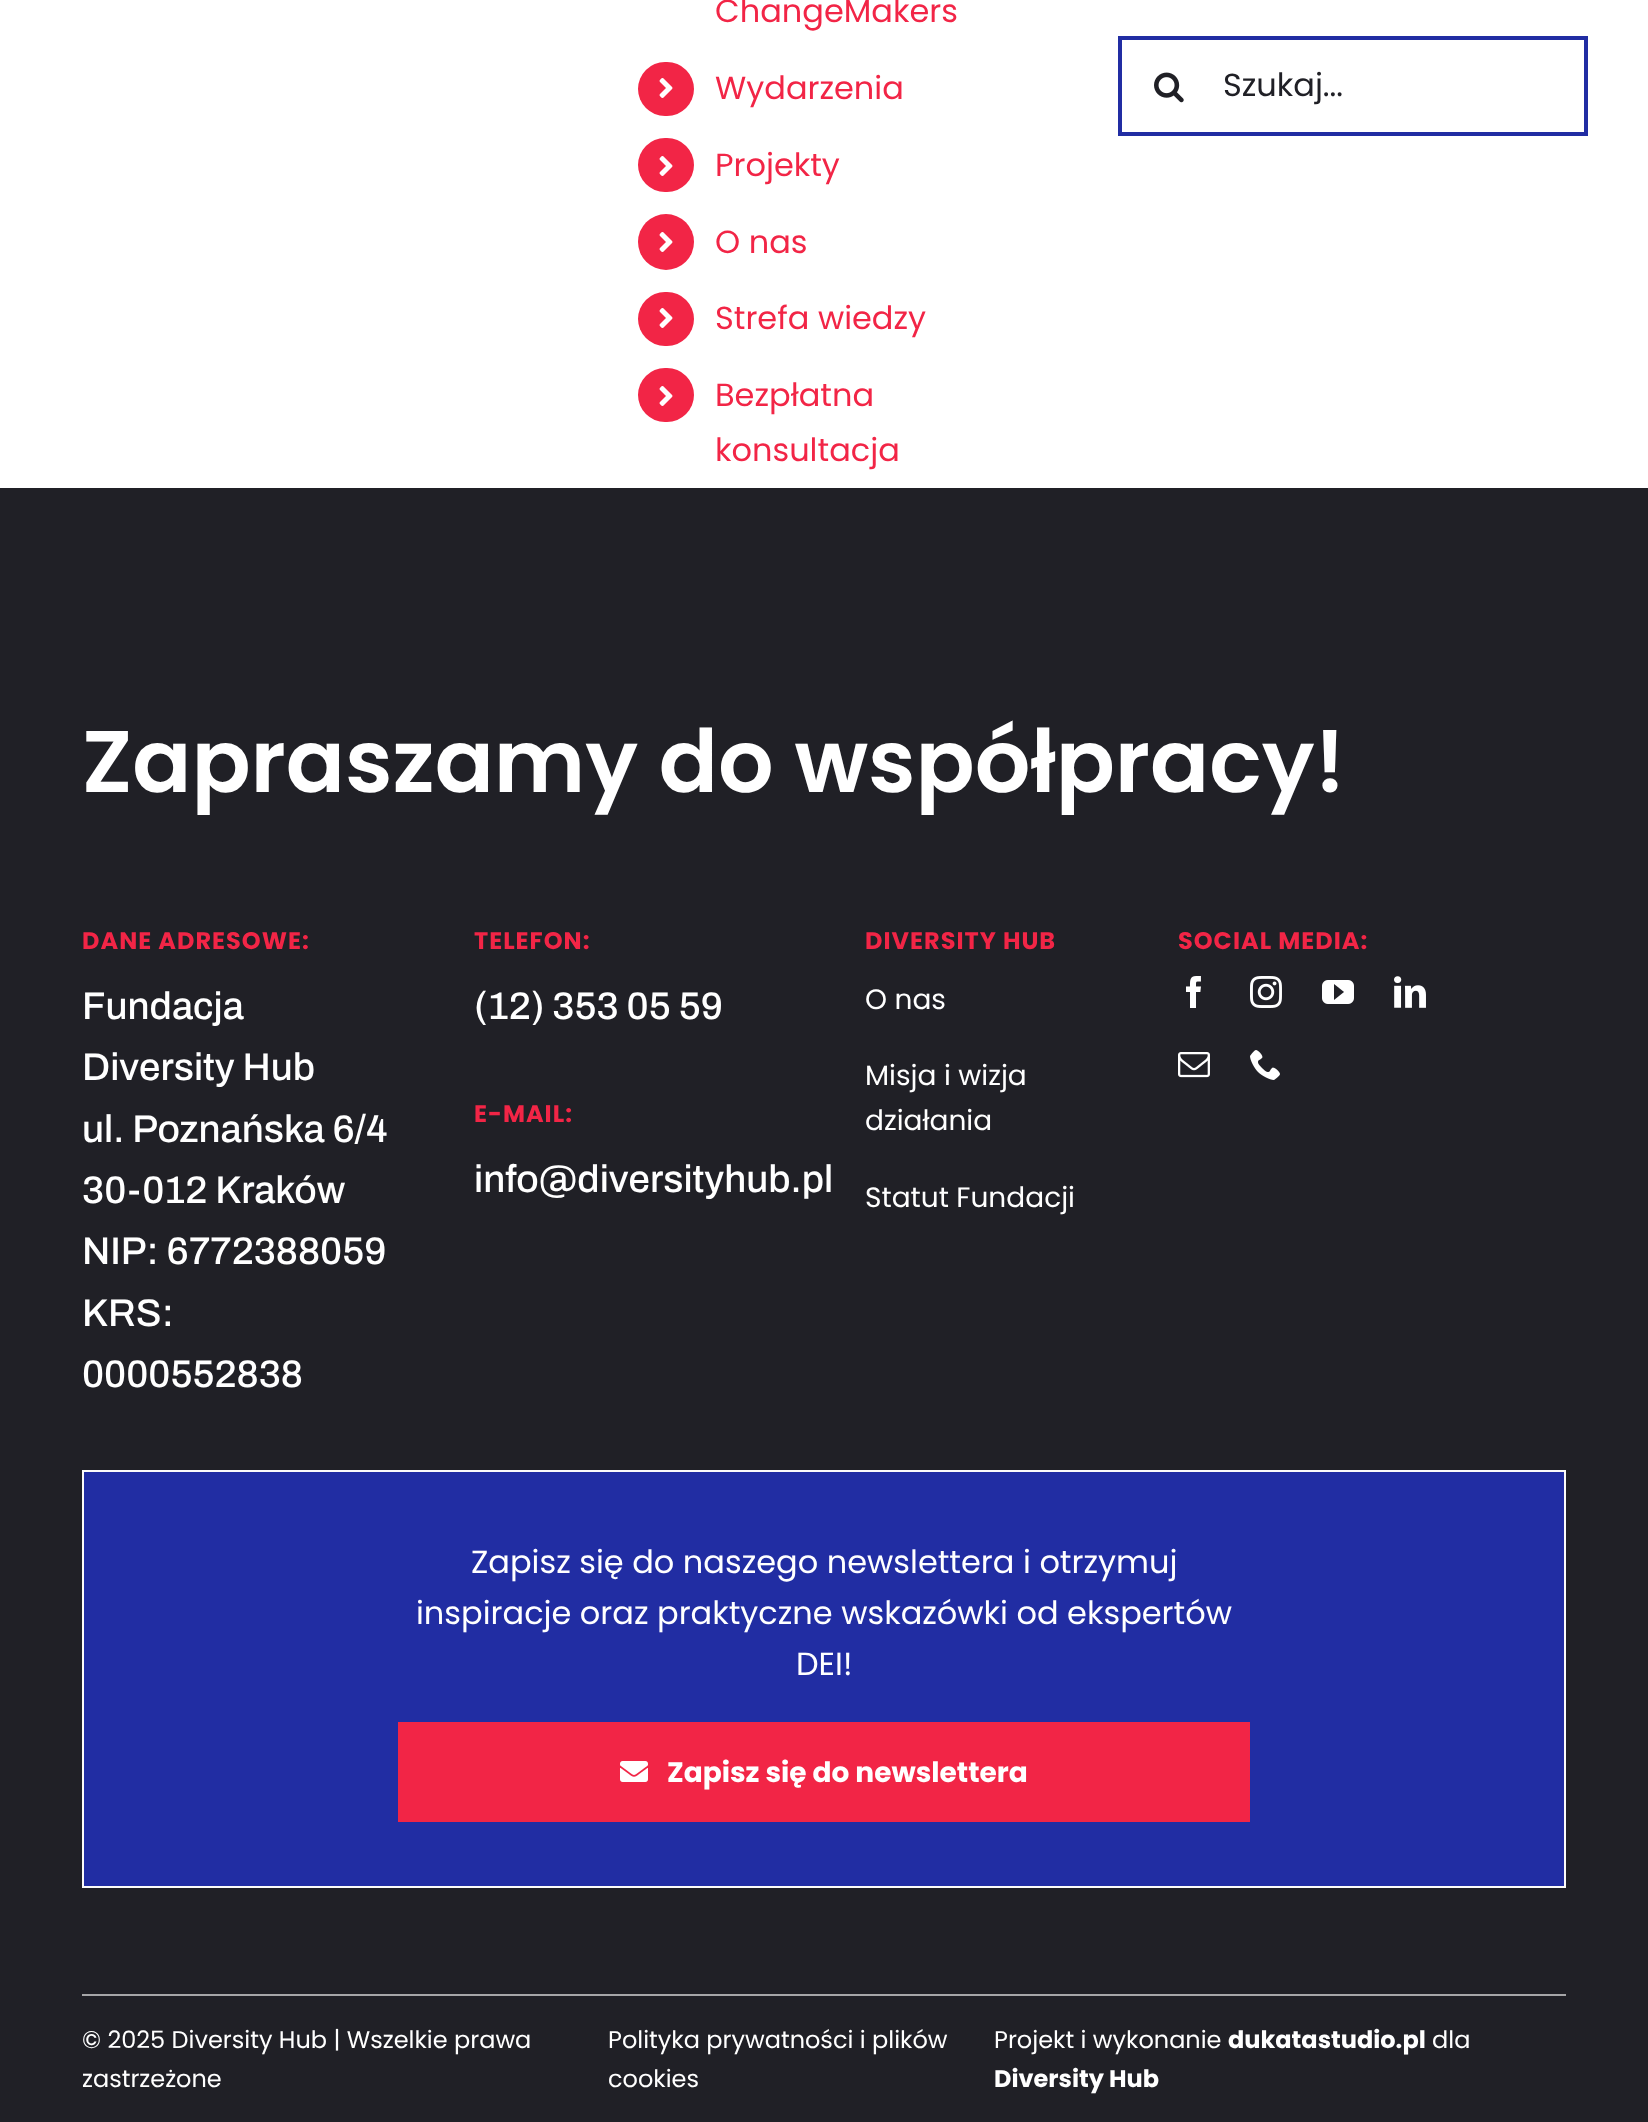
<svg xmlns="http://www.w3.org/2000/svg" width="1648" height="2122">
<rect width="100%" height="100%" fill="#fff"/>
<text x="715" y="22" style="font-family:Poppins;font-size:32px;fill:#f22546">ChangeMakers</text>
<rect x="638" y="62" width="56" height="54" rx="27" fill="#f22546"/>
<image x="659" y="78" width="14" height="20" href="media/1.png"/>
<text x="715" y="99" style="font-family:Poppins;font-size:32px;fill:#f22546">Wydarzenia</text>
<rect x="638" y="138" width="56" height="54" rx="27" fill="#f22546"/>
<image x="659" y="156" width="14" height="20" href="media/1.png"/>
<text x="715" y="176" style="font-family:Poppins;font-size:32px;fill:#f22546">Projekty</text>
<circle cx="666" cy="242" r="28" fill="#f22546"/>
<image x="659" y="232" width="14" height="20" href="media/1.png"/>
<text x="715" y="253" style="font-family:Poppins;font-size:32px;fill:#f22546">O nas</text>
<rect x="638" y="292" width="56" height="54" rx="27" fill="#f22546"/>
<image x="659" y="308" width="14" height="20" href="media/1.png"/>
<text x="715" y="329" style="font-family:Poppins;font-size:32px;fill:#f22546">Strefa wiedzy</text>
<rect x="638" y="368" width="56" height="54" rx="27" fill="#f22546"/>
<image x="659" y="386" width="14" height="20" href="media/1.png"/>
<text x="715" y="406" style="font-family:Poppins;font-size:32px;fill:#f22546">Bezpłatna</text>
<text x="715" y="461" style="font-family:Poppins;font-size:32px;fill:#f22546">konsultacja</text>
<rect x="1120" y="38" width="466" height="96" fill="none" stroke="#212da3" stroke-width="4"/>
<image x="1154" y="72" width="30" height="31" href="media/2.png"/>
<text x="1223" y="96" style="font-family:Poppins;font-size:32px;fill:#202026">Szukaj...</text>
<rect y="488" width="1648" height="1634" fill="#202026"/>
<text x="82" y="792" style="font-family:Poppins;font-size:87.25px;font-weight:600;fill:#fff">Zapraszamy do współpracy!</text>
<text x="82" y="949" style="font-family:Poppins;font-size:24px;font-weight:bold;letter-spacing:1px;fill:#f22546">DANE ADRESOWE:</text>
<text x="82" y="1019" style="font-family:Archivo;font-size:38.5px;font-weight:600;fill:#fff">Fundacja</text>
<text x="82" y="1080" style="font-family:Archivo;font-size:38.5px;font-weight:600;fill:#fff">Diversity Hub</text>
<text x="82" y="1142" style="font-family:Archivo;font-size:38.5px;font-weight:600;fill:#fff">ul. Poznańska 6/4</text>
<text x="82" y="1203" style="font-family:Archivo;font-size:38.5px;font-weight:600;fill:#fff">30-012 Kraków</text>
<text x="82" y="1264" style="font-family:Archivo;font-size:38.5px;font-weight:600;fill:#fff">NIP: 6772388059</text>
<text x="82" y="1326" style="font-family:Archivo;font-size:38.5px;font-weight:600;fill:#fff">KRS:</text>
<text x="82" y="1387" style="font-family:Archivo;font-size:38.5px;font-weight:600;fill:#fff">0000552838</text>
<text x="474" y="949" style="font-family:Poppins;font-size:24px;font-weight:bold;letter-spacing:1px;fill:#f22546">TELEFON:</text>
<text x="474" y="1019" style="font-family:Archivo;font-size:38.5px;font-weight:600;fill:#fff">(12) 353 05 59</text>
<text x="474" y="1122" style="font-family:Poppins;font-size:24px;font-weight:bold;letter-spacing:1px;fill:#f22546">E-MAIL:</text>
<text x="474" y="1192" style="font-family:Archivo;font-size:38.5px;font-weight:600;fill:#fff">info@diversityhub.pl</text>
<text x="865" y="949" style="font-family:Poppins;font-size:24px;font-weight:bold;letter-spacing:1px;fill:#f22546">DIVERSITY HUB</text>
<text x="865" y="1009" style="font-family:Poppins;font-size:28px;fill:#fff">O nas</text>
<text x="865" y="1085" style="font-family:Poppins;font-size:28px;fill:#fff">Misja i wizja</text>
<text x="865" y="1130" style="font-family:Poppins;font-size:28px;fill:#fff">działania</text>
<text x="865" y="1207" style="font-family:Poppins;font-size:28px;fill:#fff">Statut Fundacji</text>
<text x="1178" y="949" style="font-family:Poppins;font-size:24px;font-weight:bold;letter-spacing:1px;fill:#f22546">SOCIAL MEDIA:</text>
<image x="1186" y="976" width="15" height="32" href="media/3.png"/>
<image x="1250" y="976" width="32" height="32" href="media/4.png"/>
<image x="1322" y="980" width="32" height="24" href="media/5.png"/>
<image x="1394" y="976" width="32" height="32" href="media/6.png"/>
<image x="1178" y="1052" width="32" height="26" href="media/7.png"/>
<image x="1250" y="1050" width="30" height="30" href="media/8.png"/>
<rect x="83" y="1471" width="1482" height="416" fill="#212da3" stroke="#fcfbf9" stroke-width="2"/>
<text x="471" y="1573" style="font-family:Poppins;font-size:32px;fill:#fff">Zapisz się do naszego newslettera i otrzymuj</text>
<text x="416" y="1624" style="font-family:Poppins;font-size:32px;fill:#fff">inspiracje oraz praktyczne wskazówki od ekspertów</text>
<text x="796" y="1675" style="font-family:Poppins;font-size:32px;fill:#fff">DEI!</text>
<rect x="398" y="1722" width="852" height="100" fill="#f22546"/>
<image x="620" y="1761" width="28" height="21" href="media/9.png"/>
<text x="667" y="1782" style="font-family:Poppins;font-size:28px;font-weight:bold;fill:#fff">Zapisz się do newslettera</text>
<rect x="82" y="1994" width="1484" height="2" fill="#a6a6a8"/>
<text x="82" y="2048" style="font-family:Poppins;font-size:24px;fill:#fff">© 2025 Diversity Hub | Wszelkie prawa</text>
<text x="82" y="2087" style="font-family:Poppins;font-size:24px;fill:#fff">zastrzeżone</text>
<text x="608" y="2048" style="font-family:Poppins;font-size:24px;fill:#fff">Polityka prywatności i plików</text>
<text x="608" y="2087" style="font-family:Poppins;font-size:24px;fill:#fff">cookies</text>
<text x="994" y="2048" style="font-family:Poppins;font-size:24px;fill:#fff">Projekt i wykonanie</text>
<text x="1228" y="2048" style="font-family:Poppins;font-size:24px;font-weight:bold;fill:#fff">dukatastudio.pl</text>
<text x="1432" y="2048" style="font-family:Poppins;font-size:24px;fill:#fff">dla</text>
<text x="994" y="2087" style="font-family:Poppins;font-size:24px;font-weight:bold;fill:#fff">Diversity Hub</text>
</svg>
